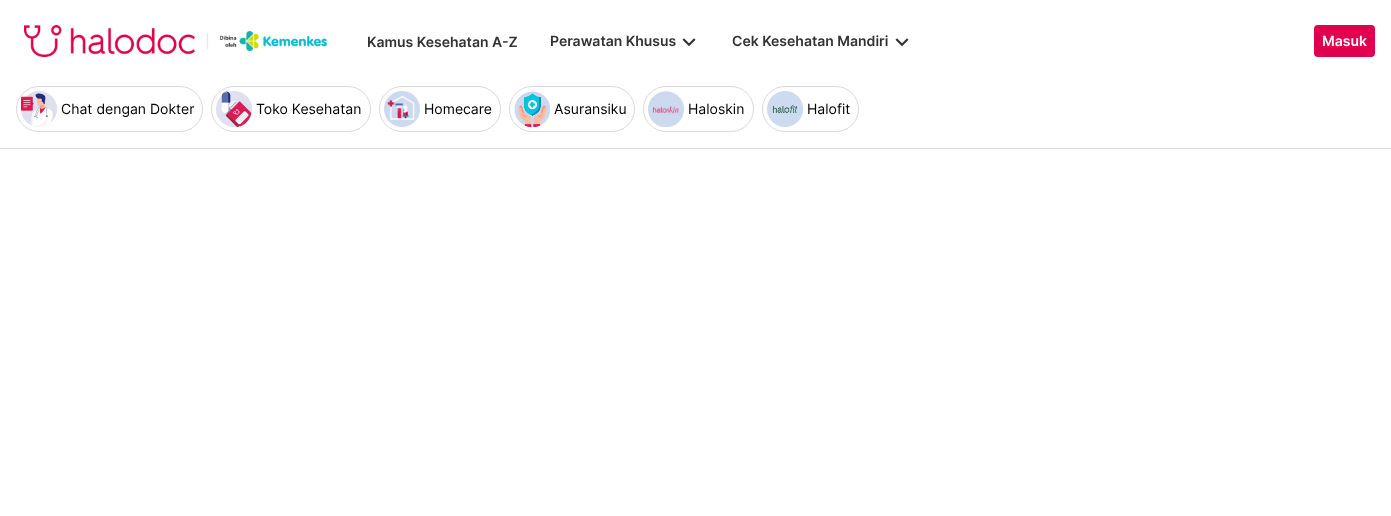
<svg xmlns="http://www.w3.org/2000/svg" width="1391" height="516">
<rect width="100%" height="100%" fill="#fff"/>
<rect y="148" width="1391" height="1" fill="#d9d9d9"/>
<image x="24" y="25" width="303" height="32" href="media/1.png"/>
<text x="367" y="47" style="font-family:Inter;font-size:14px;font-weight:600;fill:#333">Kamus Kesehatan A-Z</text>
<text x="550" y="46" style="font-family:Inter;font-size:14px;font-weight:600;fill:#333">Perawatan Khusus</text>
<image x="682" y="38" width="14" height="9" href="media/2.png"/>
<text x="732" y="46" style="font-family:Inter;font-size:14px;font-weight:600;fill:#333">Cek Kesehatan Mandiri</text>
<image x="895" y="38" width="14" height="9" href="media/2.png"/>
<rect x="1314" y="25" width="61" height="32" rx="4" fill="#e0004d"/>
<text x="1322" y="46" style="font-family:Inter;font-size:14px;font-weight:600;fill:#fff">Masuk</text>
<rect x="16.5" y="86.5" width="186" height="45" rx="22.5" fill="none" stroke="#d9d9d9"/>
<image x="21" y="91" width="36" height="36" href="media/3.png"/>
<text x="61" y="114" style="font-family:Inter;font-size:14px;fill:#000">Chat dengan Dokter</text>
<rect x="211.5" y="86.5" width="159" height="45" rx="22.5" fill="none" stroke="#d9d9d9"/>
<image x="216" y="91" width="36" height="36" href="media/4.png"/>
<text x="256" y="114" style="font-family:Inter;font-size:14px;fill:#000">Toko Kesehatan</text>
<rect x="379.5" y="86.5" width="121" height="45" rx="22.5" fill="none" stroke="#d9d9d9"/>
<image x="384" y="91" width="36" height="36" href="media/5.png"/>
<text x="424" y="114" style="font-family:Inter;font-size:14px;fill:#000">Homecare</text>
<rect x="509.5" y="86.5" width="125" height="45" rx="22.5" fill="none" stroke="#d9d9d9"/>
<image x="514" y="91" width="36" height="36" href="media/6.png"/>
<text x="554" y="114" style="font-family:Inter;font-size:14px;fill:#000">Asuransiku</text>
<rect x="643.5" y="86.5" width="110" height="45" rx="22.5" fill="none" stroke="#d9d9d9"/>
<image x="648" y="91" width="36" height="36" href="media/7.png"/>
<text x="688" y="114" style="font-family:Inter;font-size:14px;fill:#000">Haloskin</text>
<rect x="762.5" y="86.5" width="96" height="45" rx="22.5" fill="none" stroke="#d9d9d9"/>
<image x="767" y="91" width="36" height="36" href="media/8.png"/>
<text x="807" y="114" style="font-family:Inter;font-size:14px;fill:#000">Halofit</text>
</svg>
